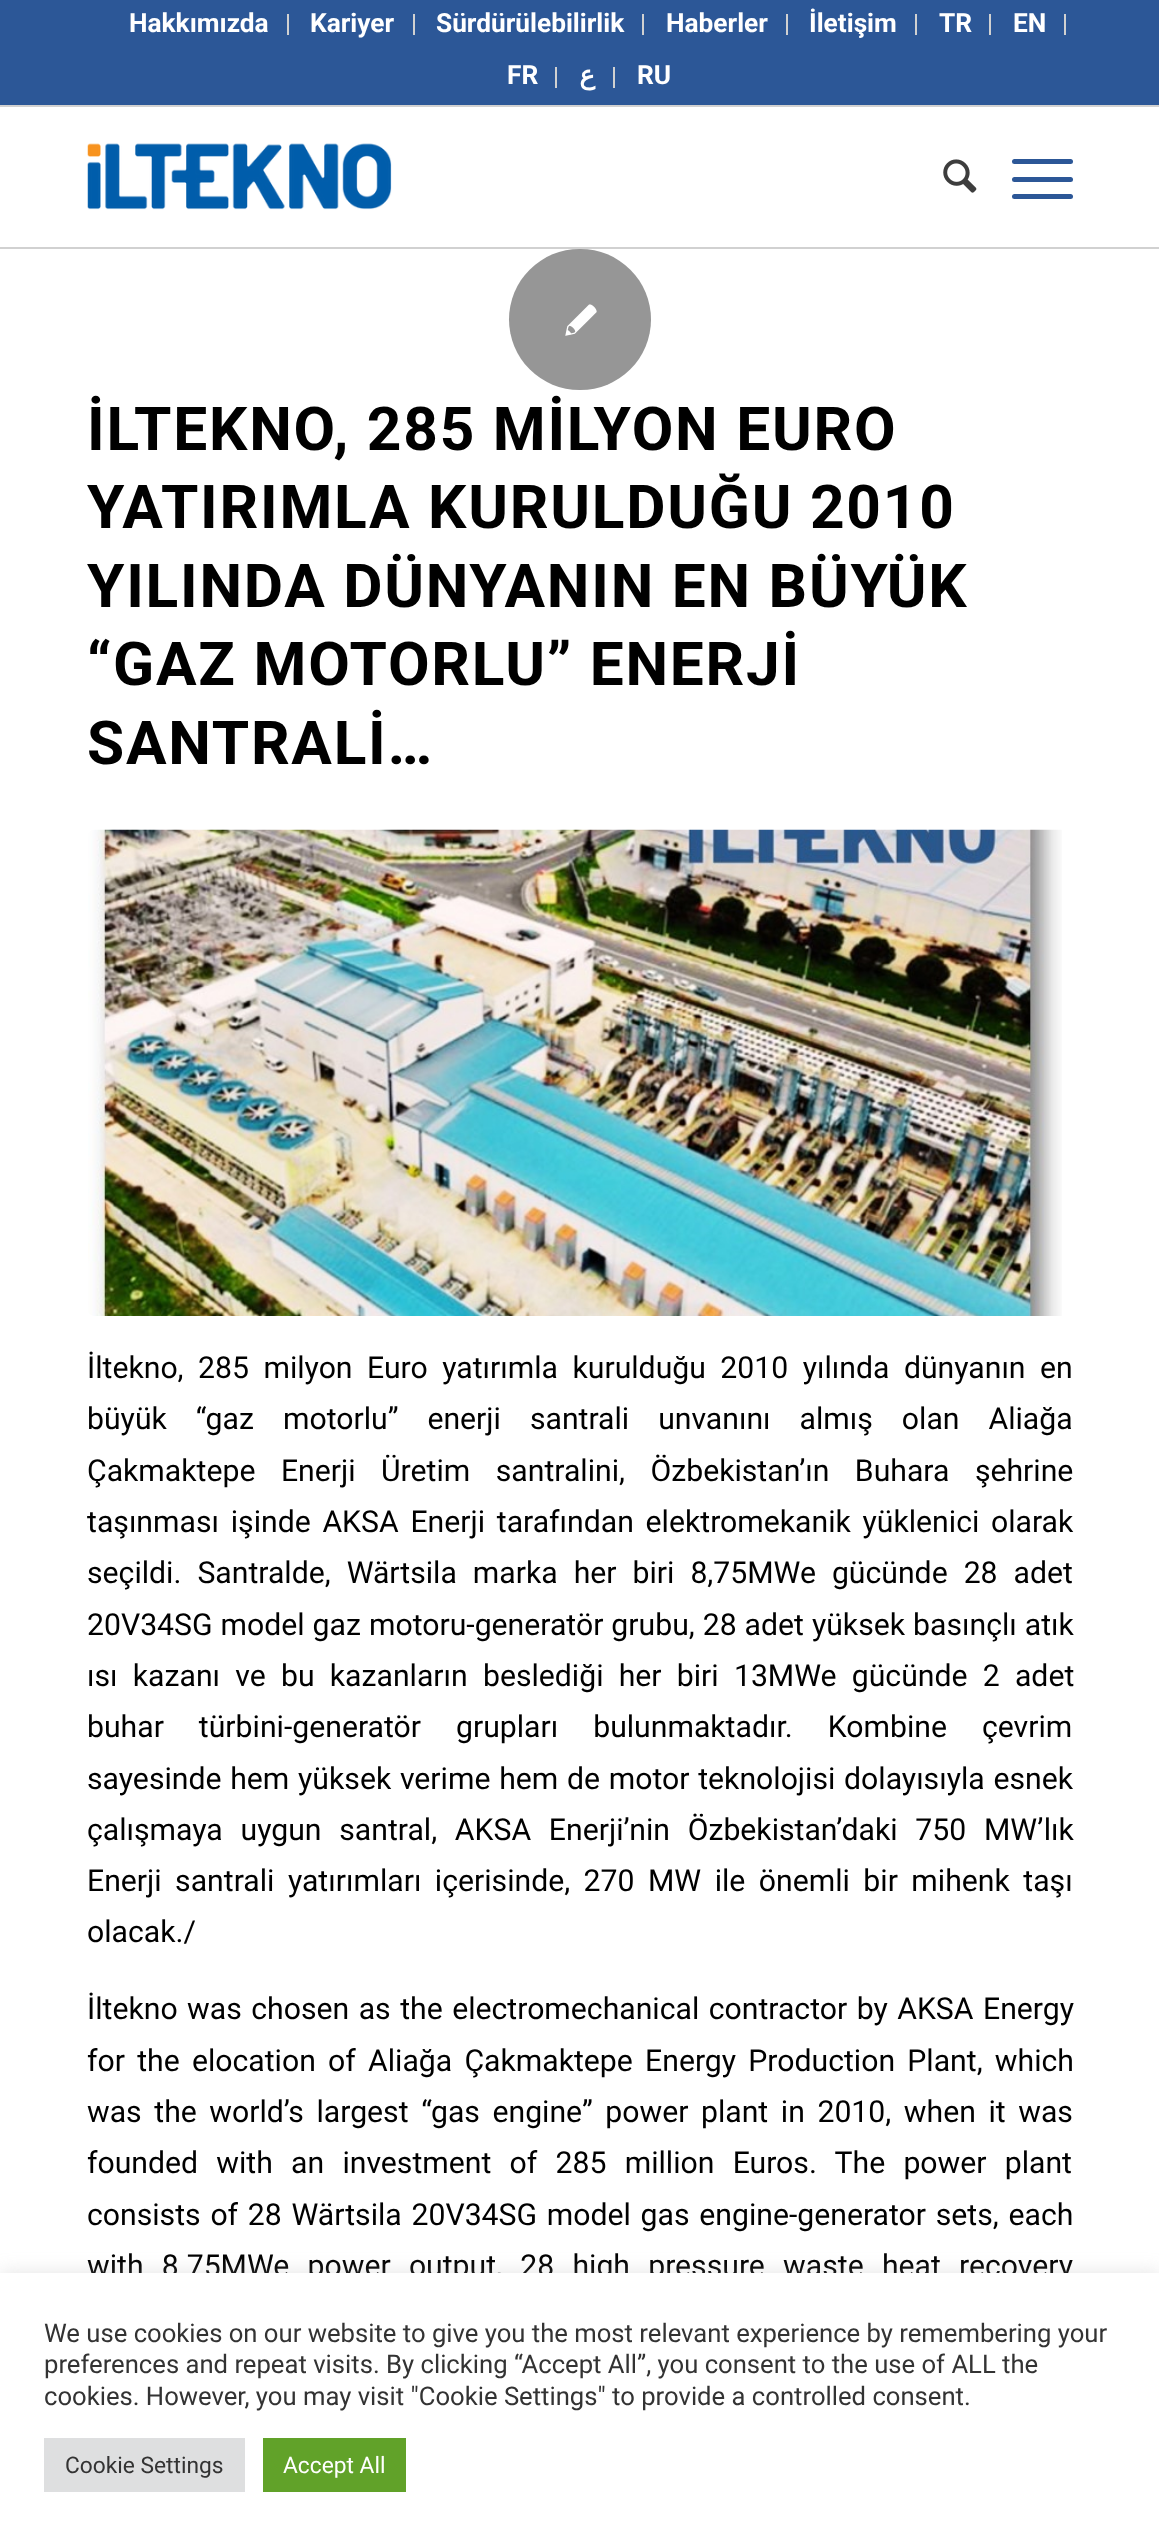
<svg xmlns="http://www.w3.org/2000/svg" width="1159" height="2543">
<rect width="100%" height="100%" fill="#fff"/>
<rect width="1159" height="105" fill="#2c5797"/>
<rect y="105" width="1159" height="2" fill="#d1d1d1"/>
<rect x="287" y="14" width="2" height="21" fill="#d1d1d1"/>
<text x="129" y="32" style="font-family:Roboto;font-size:26.25px;font-weight:bold;fill:#fff">Hakkımızda</text>
<rect x="413" y="14" width="2" height="21" fill="#d1d1d1"/>
<text x="310" y="32" style="font-family:Roboto;font-size:26.25px;font-weight:bold;fill:#fff">Kariyer</text>
<rect x="642" y="14" width="2" height="21" fill="#d1d1d1"/>
<text x="436" y="32" style="font-family:Roboto;font-size:26.25px;font-weight:bold;fill:#fff">Sürdürülebilirlik</text>
<rect x="786" y="14" width="2" height="21" fill="#d1d1d1"/>
<text x="666" y="32" style="font-family:Roboto;font-size:26.25px;font-weight:bold;fill:#fff">Haberler</text>
<rect x="915" y="14" width="2" height="21" fill="#d1d1d1"/>
<text x="809" y="32" style="font-family:Roboto;font-size:26.25px;font-weight:bold;fill:#fff">İletişim</text>
<rect x="989" y="14" width="2" height="21" fill="#d1d1d1"/>
<text x="939" y="32" style="font-family:Roboto;font-size:26.25px;font-weight:bold;fill:#fff">TR</text>
<rect x="1064" y="14" width="2" height="21" fill="#d1d1d1"/>
<text x="1013" y="32" style="font-family:Roboto;font-size:26.25px;font-weight:bold;fill:#fff">EN</text>
<rect x="555" y="67" width="2" height="21" fill="#d1d1d1"/>
<text x="507" y="84" style="font-family:Roboto;font-size:26.25px;font-weight:bold;fill:#fff">FR</text>
<rect x="613" y="67" width="2" height="21" fill="#d1d1d1"/>
<text x="595" y="84" style="font-family:DejaVu Sans;font-size:26.25px;font-weight:bold;direction:rtl;fill:#fff">ع</text>
<text x="637" y="84" style="font-family:Roboto;font-size:26.25px;font-weight:bold;fill:#fff">RU</text>
<rect y="247" width="1159" height="2" fill="#d1d1d1"/>
<image x="87" y="143" width="305" height="67" href="media/1.png"/>
<image x="943" y="159" width="34" height="34" href="media/2.png"/>
<rect x="1012" y="177" width="61" height="5" rx="2.5" fill="#2c5797"/>
<rect x="1012" y="159" width="61" height="5" rx="2.5" fill="#2c5797"/>
<rect x="1012" y="194" width="61" height="5" rx="2.5" fill="#2c5797"/>
<rect x="509" y="249" width="142" height="141" rx="70.5" fill="#969696"/>
<image x="565" y="304" width="32" height="32" href="media/3.png"/>
<text x="87" y="450" style="font-family:Roboto;font-size:60.4px;font-weight:bold;letter-spacing:1.75px;fill:#000">İLTEKNO, 285 MİLYON EURO</text>
<text x="87" y="528" style="font-family:Roboto;font-size:60.4px;font-weight:bold;letter-spacing:1.75px;fill:#000">YATIRIMLA KURULDUĞU 2010</text>
<text x="87" y="607" style="font-family:Roboto;font-size:60.4px;font-weight:bold;letter-spacing:1.75px;fill:#000">YILINDA DÜNYANIN EN BÜYÜK</text>
<text x="87" y="685" style="font-family:Roboto;font-size:60.4px;font-weight:bold;letter-spacing:1.75px;fill:#000">“GAZ MOTORLU” ENERJİ</text>
<text x="87" y="764" style="font-family:Roboto;font-size:60.4px;font-weight:bold;letter-spacing:1.75px;fill:#000">SANTRALİ…</text>
<image x="88" y="829" width="974" height="487" href="media/4.png"/>
<text x="87" y="1378" word-spacing="7" style="font-family:Roboto;font-size:30.2px;fill:#000">İltekno, 285 milyon Euro yatırımla kurulduğu 2010 yılında dünyanın en</text>
<text x="87" y="1429" word-spacing="21.5" style="font-family:Roboto;font-size:30.2px;fill:#000">büyük “gaz motorlu” enerji santrali unvanını almış olan Aliağa</text>
<text x="87" y="1481" word-spacing="18" style="font-family:Roboto;font-size:30.2px;fill:#000">Çakmaktepe Enerji Üretim santralini, Özbekistan’ın Buhara şehrine</text>
<text x="87" y="1532" word-spacing="4.25" style="font-family:Roboto;font-size:30.2px;fill:#000">taşınması işinde AKSA Enerji tarafından elektromekanik yüklenici olarak</text>
<text x="87" y="1583" word-spacing="8.5" style="font-family:Roboto;font-size:30.2px;fill:#000">seçildi. Santralde, Wärtsila marka her biri 8,75MWe gücünde 28 adet</text>
<text x="87" y="1635" word-spacing="0.5" style="font-family:Roboto;font-size:30.2px;fill:#000">20V34SG model gaz motoru-generatör grubu, 28 adet yüksek basınçlı atık</text>
<text x="87" y="1686" word-spacing="7.75" style="font-family:Roboto;font-size:30.2px;fill:#000">ısı kazanı ve bu kazanların beslediği her biri 13MWe gücünde 2 adet</text>
<text x="87" y="1737" word-spacing="27.5" style="font-family:Roboto;font-size:30.2px;fill:#000">buhar türbini-generatör grupları bulunmaktadır. Kombine çevrim</text>
<text x="87" y="1789" word-spacing="1.25" style="font-family:Roboto;font-size:30.2px;fill:#000">sayesinde hem yüksek verime hem de motor teknolojisi dolayısıyla esnek</text>
<text x="87" y="1840" word-spacing="10.25" style="font-family:Roboto;font-size:30.2px;fill:#000">çalışmaya uygun santral, AKSA Enerji’nin Özbekistan’daki 750 MW’lık</text>
<text x="87" y="1891" word-spacing="6" style="font-family:Roboto;font-size:30.2px;fill:#000">Enerji santrali yatırımları içerisinde, 270 MW ile önemli bir mihenk taşı</text>
<text x="87" y="1942" style="font-family:Roboto;font-size:30.2px;fill:#000">olacak./</text>
<text x="87" y="2019" word-spacing="2" style="font-family:Roboto;font-size:30.2px;fill:#000">İltekno was chosen as the electromechanical contractor by AKSA Energy</text>
<text x="87" y="2071" word-spacing="4.75" style="font-family:Roboto;font-size:30.2px;fill:#000">for the elocation of Aliağa Çakmaktepe Energy Production Plant, which</text>
<text x="87" y="2122" word-spacing="5.1" style="font-family:Roboto;font-size:30.2px;fill:#000">was the world’s largest “gas engine” power plant in 2010, when it was</text>
<text x="87" y="2173" word-spacing="10.75" style="font-family:Roboto;font-size:30.2px;fill:#000">founded with an investment of 285 million Euros. The power plant</text>
<text x="87" y="2225" word-spacing="2.25" style="font-family:Roboto;font-size:30.2px;fill:#000">consists of 28 Wärtsila 20V34SG model gas engine-generator sets, each</text>
<text x="87" y="2276" word-spacing="10.75" style="font-family:Roboto;font-size:30.2px;fill:#000">with 8.75MWe power output, 28 high pressure waste heat recovery</text>
<rect y="2272" width="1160" height="271" fill="#acabab4d" filter="blur(9px)"/>
<rect y="2273" width="1159" height="270" fill="#fff"/>
<text x="44" y="2342" style="font-family:Roboto;font-size:25.65px;fill:#333">We use cookies on our website to give you the most relevant experience by remembering your</text>
<text x="44" y="2373" style="font-family:Roboto;font-size:25.65px;fill:#333">preferences and repeat visits. By clicking “Accept All”, you consent to the use of ALL the</text>
<text x="44" y="2405" style="font-family:Roboto;font-size:25.65px;fill:#333">cookies. However, you may visit "Cookie Settings" to provide a controlled consent.</text>
<rect x="44" y="2438" width="201" height="54" fill="#dedfe0"/>
<text x="65" y="2473" style="font-family:Roboto;font-size:22.75px;fill:#333">Cookie Settings</text>
<rect x="263" y="2438" width="143" height="54" fill="#61a229"/>
<text x="283" y="2473" style="font-family:Roboto;font-size:22.75px;fill:#fff">Accept All</text>
</svg>
